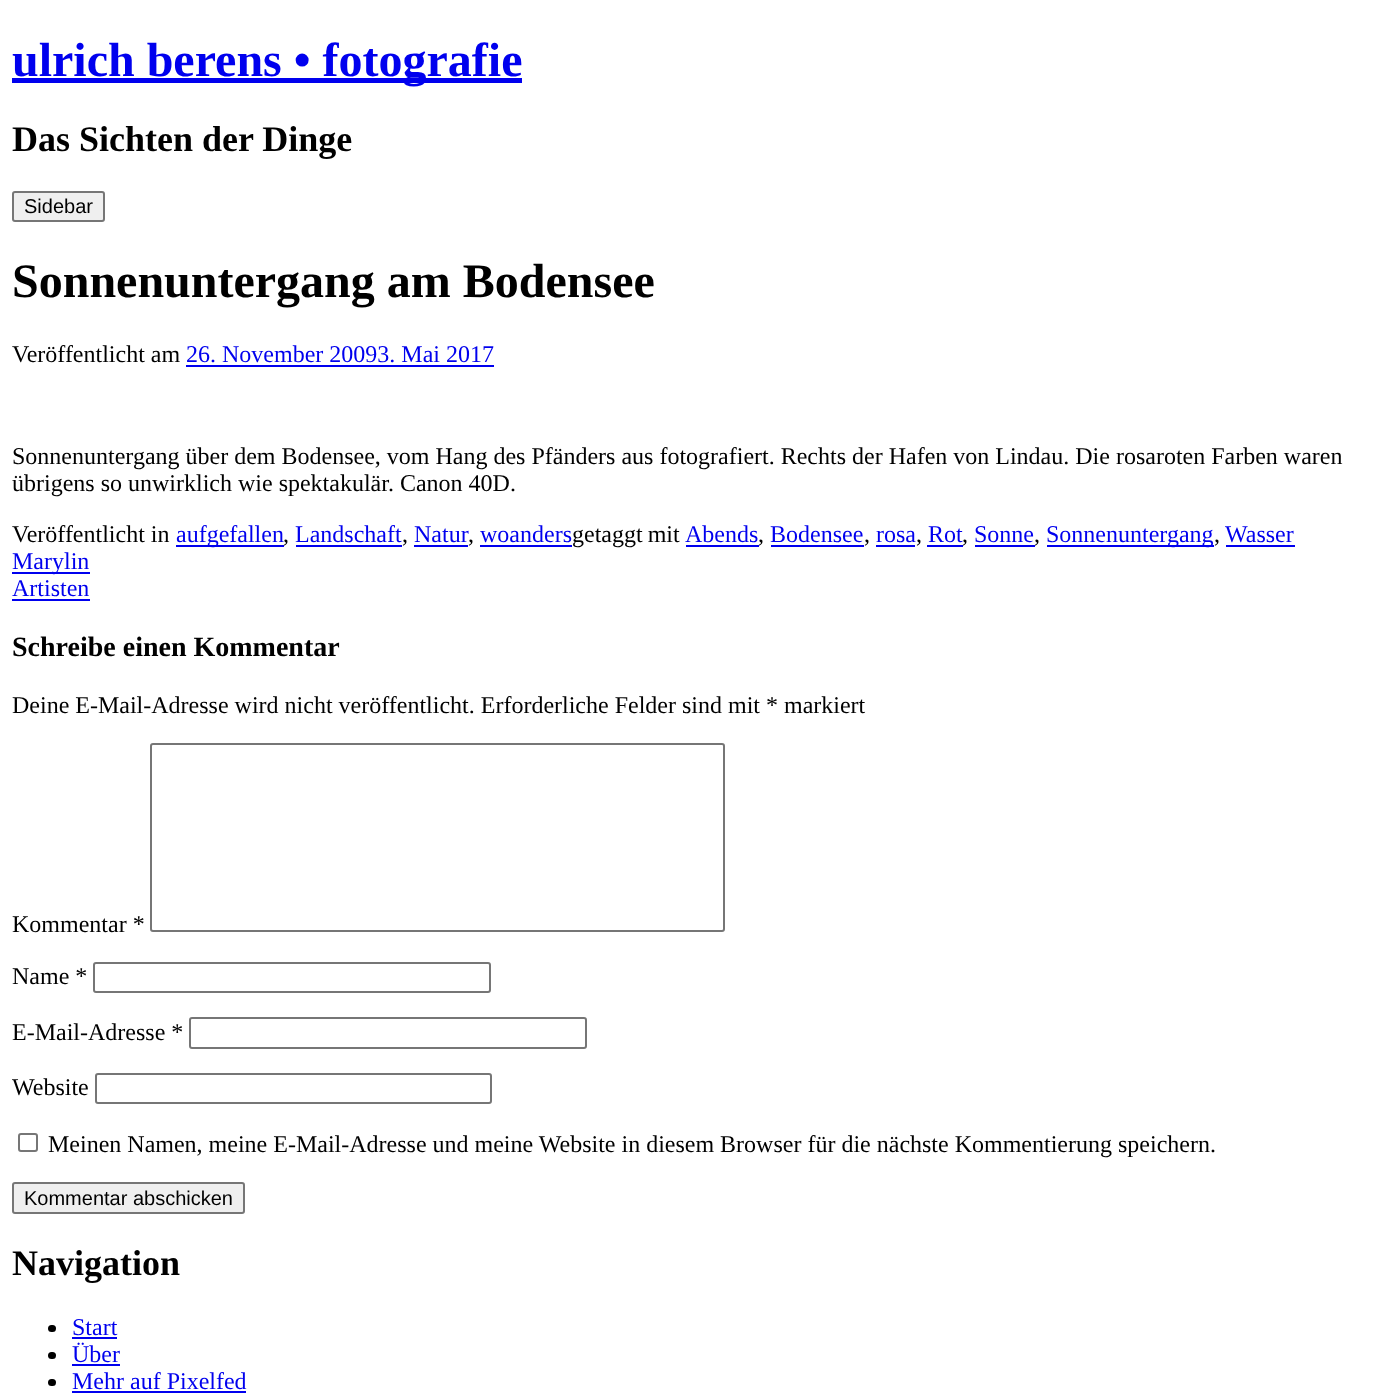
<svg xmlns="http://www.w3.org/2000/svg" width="1385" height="1399">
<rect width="100%" height="100%" fill="#fff"/>
<rect x="12" y="78" width="510" height="5" fill="#00e"/>
<text x="12" y="76" style="font-family:Liberation Serif;font-size:48px;font-weight:bold;fill:#00e">ulrich berens • fotografie</text>
<text x="12" y="151" style="font-family:Liberation Serif;font-size:36px;font-weight:bold;fill:#000">Das Sichten der Dinge</text>
<rect x="13" y="192" width="91" height="29" rx="2" fill="#efefef" stroke="#767676" stroke-width="2"/>
<text x="24" y="213" style="font-family:Liberation Sans;font-size:20px;fill:#000">Sidebar</text>
<text x="12" y="297" style="font-family:Liberation Serif;font-size:48px;font-weight:bold;fill:#000">Sonnenuntergang am Bodensee</text>
<text x="12" y="362" style="font-family:Liberation Serif;font-size:24px;fill:#000">Veröffentlicht am</text>
<text x="186" y="362" style="font-family:Liberation Serif;font-size:24px;fill:#00e">26. November 20093. Mai 2017</text>
<rect x="186" y="365" width="308" height="2" fill="#00e"/>
<text x="12" y="464" style="font-family:Liberation Serif;font-size:24px;fill:#000">Sonnenuntergang über dem Bodensee, vom Hang des Pfänders aus fotografiert. Rechts der Hafen von Lindau. Die rosaroten Farben waren</text>
<text x="12" y="491" style="font-family:Liberation Serif;font-size:24px;fill:#000">übrigens so unwirklich wie spektakulär. Canon 40D.</text>
<text x="12" y="542" style="font-family:Liberation Serif;font-size:24px;fill:#000">Veröffentlicht in</text>
<rect x="176" y="545" width="108" height="2" fill="#00e"/>
<text x="176" y="542" style="font-family:Liberation Serif;font-size:24px;fill:#00e">aufgefallen</text>
<text x="283" y="542" style="font-family:Liberation Serif;font-size:24px;fill:#000">,</text>
<text x="295" y="542" style="font-family:Liberation Serif;font-size:24px;fill:#00e">Landschaft</text>
<text x="402" y="542" style="font-family:Liberation Serif;font-size:24px;fill:#000">,</text>
<rect x="296" y="545" width="106" height="2" fill="#00e"/>
<text x="414" y="542" style="font-family:Liberation Serif;font-size:24px;fill:#00e">Natur</text>
<text x="468" y="542" style="font-family:Liberation Serif;font-size:24px;fill:#000">,</text>
<rect x="414" y="545" width="54" height="2" fill="#00e"/>
<rect x="480" y="545" width="92" height="2" fill="#00e"/>
<text x="480" y="542" style="font-family:Liberation Serif;font-size:24px;fill:#00e">woanders</text>
<text x="572" y="542" word-spacing="-1" style="font-family:Liberation Serif;font-size:24px;fill:#000">getaggt mit</text>
<text x="685" y="542" style="font-family:Liberation Serif;font-size:24px;fill:#00e">Abends</text>
<text x="758" y="542" style="font-family:Liberation Serif;font-size:24px;fill:#000">,</text>
<rect x="686" y="545" width="73" height="2" fill="#00e"/>
<text x="770" y="542" style="font-family:Liberation Serif;font-size:24px;fill:#00e">Bodensee</text>
<text x="864" y="542" style="font-family:Liberation Serif;font-size:24px;fill:#000">,</text>
<rect x="771" y="545" width="93" height="2" fill="#00e"/>
<text x="876" y="542" style="font-family:Liberation Serif;font-size:24px;fill:#00e">rosa</text>
<text x="916" y="542" style="font-family:Liberation Serif;font-size:24px;fill:#000">,</text>
<rect x="876" y="545" width="39" height="2" fill="#00e"/>
<text x="928" y="542" style="font-family:Liberation Serif;font-size:24px;fill:#00e">Rot</text>
<text x="962" y="542" style="font-family:Liberation Serif;font-size:24px;fill:#000">,</text>
<rect x="927" y="545" width="36" height="2" fill="#00e"/>
<text x="974" y="542" style="font-family:Liberation Serif;font-size:24px;fill:#00e">Sonne</text>
<text x="1034" y="542" style="font-family:Liberation Serif;font-size:24px;fill:#000">,</text>
<rect x="975" y="545" width="60" height="2" fill="#00e"/>
<rect x="1047" y="545" width="167" height="2" fill="#00e"/>
<text x="1046" y="542" style="font-family:Liberation Serif;font-size:24px;fill:#00e">Sonnenuntergang</text>
<text x="1214" y="542" style="font-family:Liberation Serif;font-size:24px;fill:#000">,</text>
<rect x="1226" y="545" width="69" height="2" fill="#00e"/>
<text x="1225" y="542" style="font-family:Liberation Serif;font-size:24px;fill:#00e">Wasser</text>
<rect x="12" y="572" width="78" height="2" fill="#00e"/>
<text x="12" y="569" style="font-family:Liberation Serif;font-size:24px;fill:#00e">Marylin</text>
<text x="12" y="596" style="font-family:Liberation Serif;font-size:24px;fill:#00e">Artisten</text>
<rect x="12" y="599" width="78" height="2" fill="#00e"/>
<text x="12" y="656" style="font-family:Liberation Serif;font-size:28px;font-weight:bold;fill:#000">Schreibe einen Kommentar</text>
<text x="12" y="713" style="font-family:Liberation Serif;font-size:24px;fill:#000">Deine E-Mail-Adresse wird nicht veröffentlicht. Erforderliche Felder sind mit * markiert</text>
<text x="12" y="932" style="font-family:Liberation Serif;font-size:24px;fill:#000">Kommentar *</text>
<rect x="151" y="744" width="573" height="187" rx="2" fill="none" stroke="#767676" stroke-width="2"/>
<text x="12" y="984" style="font-family:Liberation Serif;font-size:24px;fill:#000">Name *</text>
<rect x="94" y="963" width="396" height="29" rx="2" fill="none" stroke="#767676" stroke-width="2"/>
<text x="12" y="1040" style="font-family:Liberation Serif;font-size:24px;fill:#000">E-Mail-Adresse *</text>
<rect x="190" y="1018" width="396" height="30" rx="2" fill="none" stroke="#767676" stroke-width="2"/>
<text x="12" y="1095" style="font-family:Liberation Serif;font-size:24px;fill:#000">Website</text>
<rect x="96" y="1074" width="395" height="29" rx="2" fill="none" stroke="#767676" stroke-width="2"/>
<rect x="19" y="1134" width="18" height="17" rx="2" fill="none" stroke="#767676" stroke-width="2"/>
<text x="48" y="1152" style="font-family:Liberation Serif;font-size:24px;fill:#000">Meinen Namen, meine E-Mail-Adresse und meine Website in diesem Browser für die nächste Kommentierung speichern.</text>
<rect x="13" y="1183" width="231" height="30" rx="2" fill="#efefef" stroke="#767676" stroke-width="2"/>
<text x="24" y="1205" style="font-family:Liberation Sans;font-size:20px;fill:#000">Kommentar abschicken</text>
<text x="12" y="1275" style="font-family:Liberation Serif;font-size:36px;font-weight:bold;fill:#000">Navigation</text>
<rect x="48" y="1325" width="8" height="7" rx="3.5" fill="#000"/>
<text x="72" y="1335" style="font-family:Liberation Serif;font-size:24px;fill:#00e">Start</text>
<rect x="72" y="1337" width="45" height="2" fill="#00e"/>
<rect x="48" y="1352" width="8" height="7" rx="3.5" fill="#000"/>
<text x="72" y="1362" style="font-family:Liberation Serif;font-size:24px;fill:#00e">Über</text>
<rect x="72" y="1364" width="48" height="2" fill="#00e"/>
<rect x="48" y="1379" width="8" height="7" rx="3.5" fill="#000"/>
<text x="72" y="1389" style="font-family:Liberation Serif;font-size:24px;fill:#00e">Mehr auf Pixelfed</text>
<rect x="72" y="1391" width="174" height="2" fill="#00e"/>
</svg>
